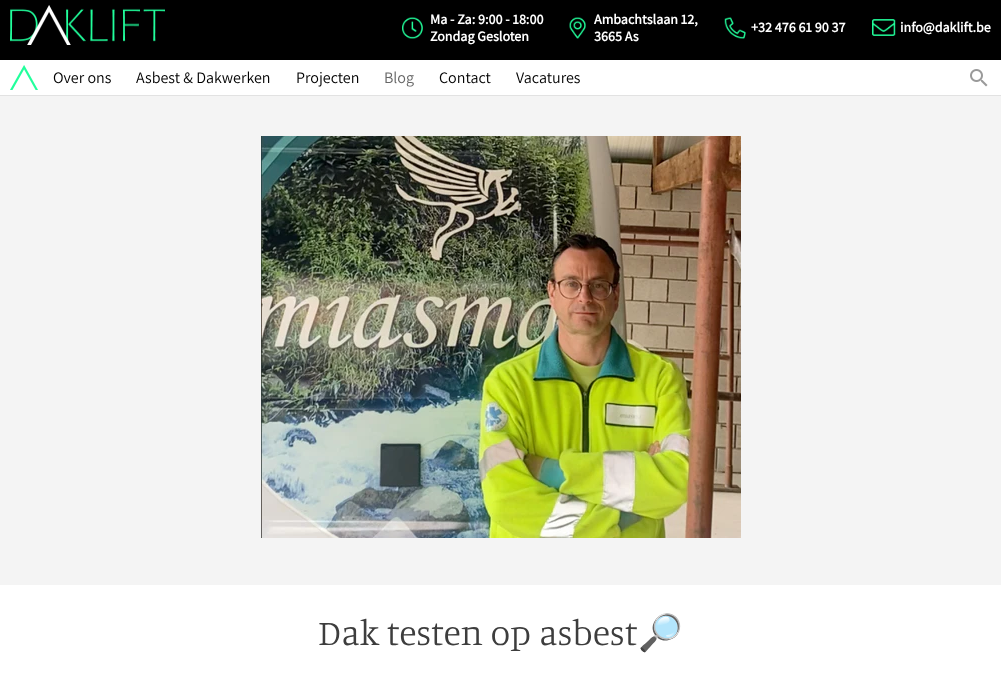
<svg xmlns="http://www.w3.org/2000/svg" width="1001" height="685">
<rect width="100%" height="100%" fill="#fff"/>
<rect width="1001" height="60" fill="#000"/>
<image x="10" y="5" width="155" height="40" href="media/1.png"/>
<image x="402" y="17" width="21" height="22" href="media/2.png"/>
<text x="430" y="24" style="font-family:Assistant;font-size:14px;font-weight:bold;fill:#fff">Ma - Za: 9:00 - 18:00</text>
<text x="430" y="41" style="font-family:Assistant;font-size:14px;font-weight:bold;fill:#fff">Zondag Gesloten</text>
<image x="569" y="17" width="17" height="22" href="media/3.png"/>
<text x="594" y="24" style="font-family:Assistant;font-size:14px;font-weight:bold;fill:#fff">Ambachtslaan 12,</text>
<text x="594" y="41" style="font-family:Assistant;font-size:14px;font-weight:bold;fill:#fff">3665 As</text>
<image x="724" y="17" width="22" height="22" href="media/4.png"/>
<text x="751" y="32" style="font-family:Assistant;font-size:14px;font-weight:bold;fill:#fff">+32 476 61 90 37</text>
<image x="872" y="19" width="24" height="17" href="media/5.png"/>
<text x="900" y="32" style="font-family:Assistant;font-size:14px;font-weight:bold;fill:#fff">info@daklift.be</text>
<rect y="95" width="1001" height="1" fill="#e2e2e2"/>
<image x="10" y="65" width="28" height="25" href="media/6.png"/>
<text x="53" y="83" style="font-family:Assistant;font-size:16px;fill:#000">Over ons</text>
<text x="136" y="83" style="font-family:Assistant;font-size:16px;fill:#000">Asbest &amp; Dakwerken</text>
<text x="296" y="83" style="font-family:Assistant;font-size:16px;fill:#000">Projecten</text>
<text x="384" y="83" style="font-family:Assistant;font-size:16px;fill:#666">Blog</text>
<text x="439" y="83" style="font-family:Assistant;font-size:16px;fill:#000">Contact</text>
<text x="516" y="83" style="font-family:Assistant;font-size:16px;fill:#000">Vacatures</text>
<image x="970" y="69" width="18" height="18" href="media/7.png"/>
<rect y="96" width="1001" height="489" fill="#f4f4f4"/>
<image x="261" y="136" width="480" height="402" href="media/8.png"/>
<text x="318" y="645" style="font-family:Manuale;font-size:36px;font-weight:300;fill:#3d3d3d">Dak testen op asbest</text>
<text x="638" y="645" style="font-family:Noto Color Emoji;font-size:36px;fill:#3d3d3d">🔎</text>
</svg>
